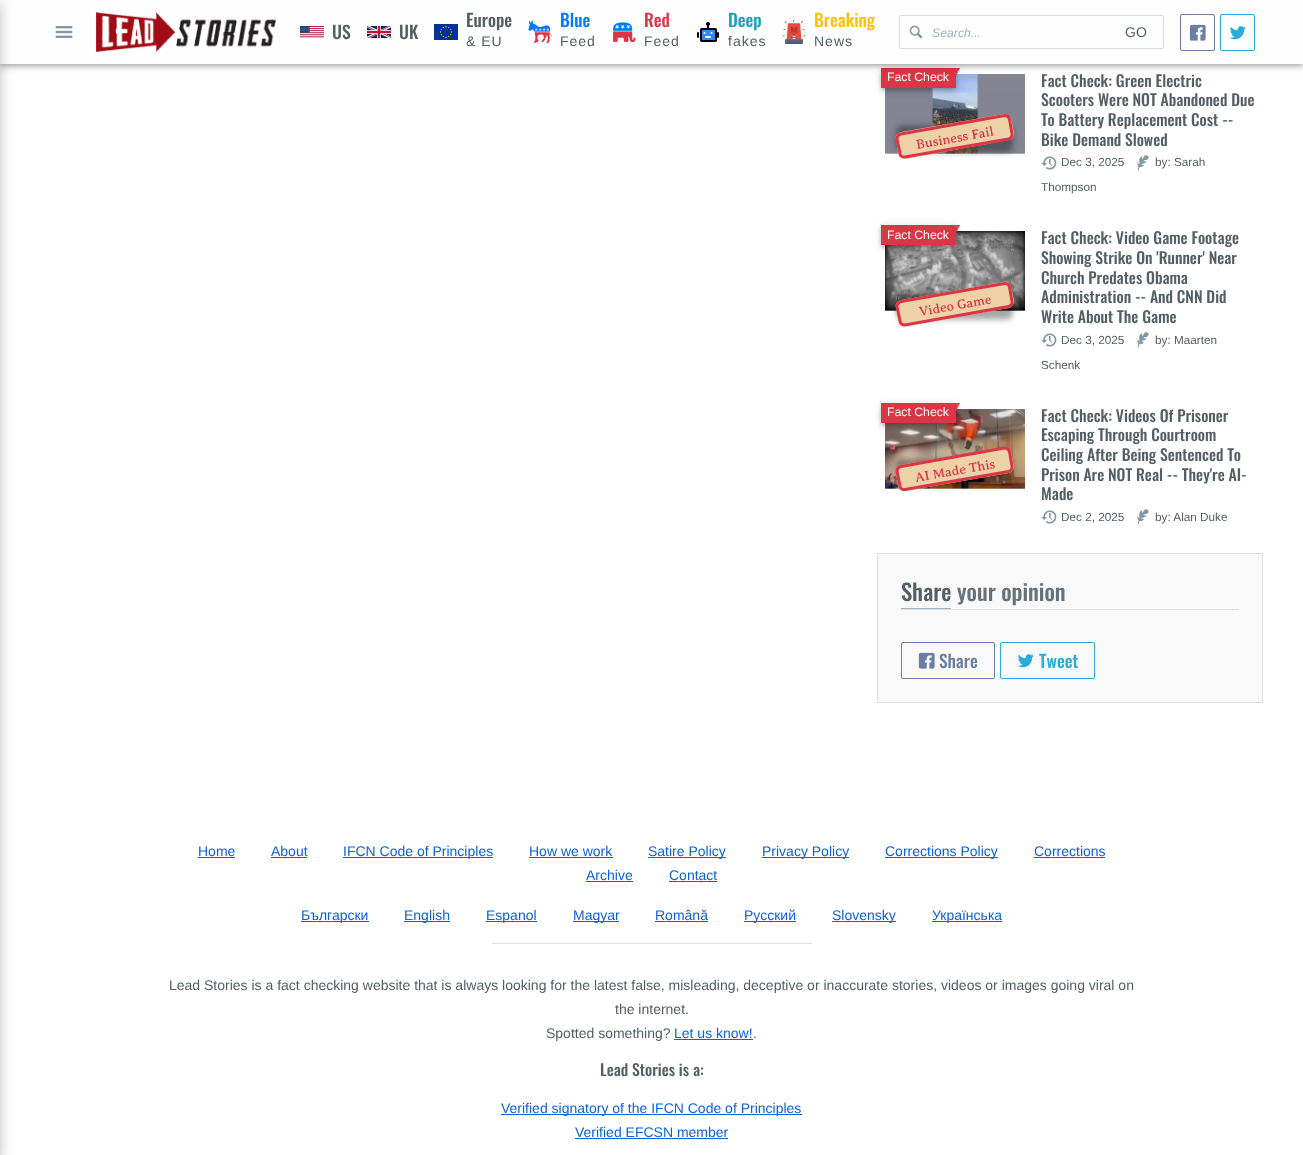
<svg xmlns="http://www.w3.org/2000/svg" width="1303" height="1155">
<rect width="100%" height="100%" fill="#fff"/>
<image x="885" y="74" width="140" height="80" href="media/15.png"/>
<rect x="882" y="71" width="73" height="18" fill="#0000002e" filter="blur(2px)"/>
<rect x="881" y="69" width="75" height="20" fill="#0000001a" filter="blur(5px)"/>
<rect x="881" y="72" width="75" height="20" fill="#0000001f" filter="blur(2.5px)"/>
<rect x="881" y="68" width="75" height="20" fill="#dc3545"/>
<path d="M956 68h4l-2 4z" fill="#dc3545"/>
<path d="M956 76v-8l2 4z" fill="#dc3545"/>
<rect x="1" y="3" width="1301" height="62" fill="#0000002e" filter="blur(2px)"/>
<rect y="1" width="1303" height="64" fill="#0000001a" filter="blur(5px)"/>
<rect y="4" width="1303" height="64" fill="#0000001f" filter="blur(2.5px)"/>
<rect width="1303" height="64" fill="#fefefe"/>
<rect x="-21" y="1" width="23" height="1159" fill="#0000001a" filter="blur(7px)"/>
<rect x="-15" y="7" width="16" height="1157" fill="#0000001f" filter="blur(5px)"/>
<image x="55" y="26" width="18" height="12" href="media/1.png"/>
<image x="96" y="12" width="180" height="40" href="media/2.png"/>
<image x="300" y="26" width="24" height="12" href="media/3.png"/>
<text x="332" y="39" style="font-family:Oswald;font-size:17.5px;font-weight:500;fill:#545e65">US</text>
<image x="367" y="26" width="24" height="12" href="media/4.png"/>
<text x="399" y="39" style="font-family:Oswald;font-size:17.5px;font-weight:500;fill:#545e65">UK</text>
<image x="434" y="24" width="24" height="16" href="media/5.png"/>
<text x="466" y="27" style="font-family:Oswald;font-size:17.5px;font-weight:500;fill:#545e65">Europe</text>
<text x="466" y="46" style="font-family:Liberation Sans;font-size:14px;letter-spacing:1px;fill:#545e65">&amp; EU</text>
<image x="528" y="20" width="24" height="23" href="media/6.png"/>
<text x="560" y="27" style="font-family:Oswald;font-size:17.5px;font-weight:500;fill:#007bff">Blue</text>
<text x="560" y="46" style="font-family:Liberation Sans;font-size:14px;letter-spacing:1px;fill:#545e65">Feed</text>
<image x="613" y="22" width="23" height="20" href="media/7.png"/>
<text x="644" y="27" style="font-family:Oswald;font-size:17.5px;font-weight:500;fill:#dc3545">Red</text>
<text x="644" y="46" style="font-family:Liberation Sans;font-size:14px;letter-spacing:1px;fill:#545e65">Feed</text>
<image x="697" y="22" width="22" height="20" href="media/8.png"/>
<text x="728" y="27" style="font-family:Oswald;font-size:17.5px;font-weight:500;fill:#17a2b8">Deep</text>
<text x="728" y="46" style="font-family:Liberation Sans;font-size:14px;letter-spacing:1px;fill:#545e65">fakes</text>
<image x="782" y="20" width="24" height="24" href="media/9.png"/>
<text x="814" y="27" style="font-family:Oswald;font-size:17.5px;font-weight:500;fill:#ffc107">Breaking</text>
<text x="814" y="46" style="font-family:Liberation Sans;font-size:14px;letter-spacing:1px;fill:#545e65">News</text>
<rect x="899.5" y="15.5" width="264" height="33" rx="1.5" fill="none" stroke="#dfdfdf"/>
<image x="909" y="25" width="14" height="14" href="media/10.png"/>
<text x="932" y="37" style="font-family:Liberation Sans;font-size:12.25px;font-style:italic;fill:#9db2c1">Search...</text>
<text x="1125" y="37" style="font-family:Liberation Sans;font-size:14px;fill:#545e65">GO</text>
<rect x="1180.5" y="14.5" width="34" height="36" rx="1.5" fill="none" stroke="#6b7ea3"/>
<image x="1189" y="24" width="17" height="17" href="media/11.png"/>
<rect x="1220.5" y="14.5" width="34" height="36" rx="1.5" fill="none" stroke="#29acdb"/>
<image x="1229" y="26" width="17" height="14" href="media/12.png"/>
<text x="887" y="81" style="font-family:Liberation Sans;font-size:12.25px;fill:#fefefe">Fact Check</text>
<text x="1041" y="87" style="font-family:Oswald;font-size:15.75px;font-weight:500;fill:#545e65">Fact Check: Green Electric</text>
<text x="1041" y="106" style="font-family:Oswald;font-size:15.75px;font-weight:500;fill:#545e65">Scooters Were NOT Abandoned Due</text>
<text x="1041" y="126" style="font-family:Oswald;font-size:15.75px;font-weight:500;fill:#545e65">To Battery Replacement Cost --</text>
<text x="1041" y="146" style="font-family:Oswald;font-size:15.75px;font-weight:500;fill:#545e65">Bike Demand Slowed</text>
<image x="1137" y="155" width="12" height="16" href="media/13.png"/>
<text x="1155" y="166" style="font-family:Liberation Sans;font-size:11.75px;fill:#545e65">by: Sarah</text>
<text x="1041" y="191" style="font-family:Liberation Sans;font-size:11.75px;fill:#545e65">Thompson</text>
<image x="1041" y="156" width="16" height="14" href="media/14.png"/>
<text x="1061" y="166" style="font-family:Liberation Sans;font-size:11.75px;fill:#545e65">Dec 3, 2025</text>
<rect x="897" y="126" width="115" height="25" rx="5" fill="#0000002e" filter="blur(2px)"/>
<rect x="896" y="124" width="117" height="27" rx="6" fill="#0000001a" filter="blur(5px)"/>
<rect x="896" y="127" width="117" height="27" rx="6" fill="#0000001f" filter="blur(2.5px)"/>
<path d="M901 132l103-18c3 0 6 2 7 5l3 14c0 4-2 7-5 7l-104 19c-3 0-6-2-7-5l-2-15c-1-3 1-6 5-7z" fill="#eed1a7"/>
<path d="M901 134l103.5-18.5c2.5 0 4.5 1.5 5 4l2.5 14c.5 2.5-1 5-3.5 5.5l-103.5 18c-2.5 .5-5-1-5-3.5l-3-14.5c0-2.5 1.5-4.5 4-5z" fill="none" stroke="#dc3545" stroke-width="3"/>
<text x="917" y="149" transform="rotate(-10 917 149)" style="font-family:Averia Serif Libre;font-size:13.25px;fill:#dc3545">Business Fail</text>
<image x="885" y="231" width="140" height="80" href="media/16.png"/>
<rect x="882" y="228" width="73" height="18" fill="#0000002e" filter="blur(2px)"/>
<rect x="881" y="226" width="75" height="20" fill="#0000001a" filter="blur(5px)"/>
<rect x="881" y="229" width="75" height="20" fill="#0000001f" filter="blur(2.5px)"/>
<rect x="881" y="225" width="75" height="20" fill="#dc3545"/>
<path d="M956 225h4l-2 4z" fill="#dc3545"/>
<path d="M956 233v-8l2 4z" fill="#dc3545"/>
<text x="887" y="239" style="font-family:Liberation Sans;font-size:12.25px;fill:#fefefe">Fact Check</text>
<text x="1041" y="244" style="font-family:Oswald;font-size:15.75px;font-weight:500;fill:#545e65">Fact Check: Video Game Footage</text>
<text x="1041" y="264" style="font-family:Oswald;font-size:15.75px;font-weight:500;fill:#545e65">Showing Strike On 'Runner' Near</text>
<text x="1041" y="284" style="font-family:Oswald;font-size:15.75px;font-weight:500;fill:#545e65">Church Predates Obama</text>
<text x="1041" y="303" style="font-family:Oswald;font-size:15.75px;font-weight:500;fill:#545e65">Administration -- And CNN Did</text>
<text x="1041" y="323" style="font-family:Oswald;font-size:15.75px;font-weight:500;fill:#545e65">Write About The Game</text>
<image x="1137" y="332" width="12" height="16" href="media/13.png"/>
<text x="1155" y="344" style="font-family:Liberation Sans;font-size:11.75px;fill:#545e65">by: Maarten</text>
<text x="1041" y="369" style="font-family:Liberation Sans;font-size:11.75px;fill:#545e65">Schenk</text>
<image x="1041" y="333" width="16" height="14" href="media/14.png"/>
<text x="1061" y="344" style="font-family:Liberation Sans;font-size:11.75px;fill:#545e65">Dec 3, 2025</text>
<rect x="897" y="294" width="115" height="24" rx="5" fill="#0000002e" filter="blur(2px)"/>
<rect x="896" y="292" width="117" height="26" rx="6" fill="#0000001a" filter="blur(5px)"/>
<rect x="896" y="295" width="117" height="26" rx="6" fill="#0000001f" filter="blur(2.5px)"/>
<path d="M901 300l103-18c3-1 6 1 7 5l3 14c0 3-2 6-5 7l-104 18c-3 1-6-1-7-5l-2-14c-1-3 1-6 5-7z" fill="#eed1a7"/>
<path d="M901 301.5l103.5-18c2.5-.5 4.5 1 5 3.5l2.5 14.5c.5 2-1 4.5-3.5 5l-103.5 18.5c-2.5 0-5-1.5-5-4l-3-14.5c0-2 1.5-4.5 4-5z" fill="none" stroke="#dc3545" stroke-width="3"/>
<text x="920" y="316" transform="rotate(-10 920 316)" style="font-family:Averia Serif Libre;font-size:13.25px;fill:#dc3545">Video Game</text>
<image x="885" y="409" width="140" height="80" href="media/17.png"/>
<rect x="882" y="406" width="73" height="18" fill="#0000002e" filter="blur(2px)"/>
<rect x="881" y="404" width="75" height="20" fill="#0000001a" filter="blur(5px)"/>
<rect x="881" y="407" width="75" height="20" fill="#0000001f" filter="blur(2.5px)"/>
<rect x="881" y="403" width="75" height="20" fill="#dc3545"/>
<text x="887" y="416" style="font-family:Liberation Sans;font-size:12.25px;fill:#fefefe">Fact Check</text>
<path d="M956 403h4l-2 4z" fill="#dc3545"/>
<path d="M956 411v-8l2 4z" fill="#dc3545"/>
<text x="1041" y="422" style="font-family:Oswald;font-size:15.75px;font-weight:500;fill:#545e65">Fact Check: Videos Of Prisoner</text>
<text x="1041" y="441" style="font-family:Oswald;font-size:15.75px;font-weight:500;fill:#545e65">Escaping Through Courtroom</text>
<text x="1041" y="461" style="font-family:Oswald;font-size:15.75px;font-weight:500;fill:#545e65">Ceiling After Being Sentenced To</text>
<text x="1041" y="481" style="font-family:Oswald;font-size:15.75px;font-weight:500;fill:#545e65">Prison Are NOT Real -- They're AI-</text>
<text x="1041" y="500" style="font-family:Oswald;font-size:15.75px;font-weight:500;fill:#545e65">Made</text>
<image x="1041" y="510" width="16" height="14" href="media/14.png"/>
<text x="1061" y="521" style="font-family:Liberation Sans;font-size:11.75px;fill:#545e65">Dec 2, 2025</text>
<image x="1137" y="509" width="12" height="16" href="media/13.png"/>
<text x="1155" y="521" style="font-family:Liberation Sans;font-size:11.75px;fill:#545e65">by: Alan Duke</text>
<rect x="897" y="459" width="115" height="24" rx="5" fill="#0000002e" filter="blur(2px)"/>
<rect x="896" y="457" width="117" height="26" rx="6" fill="#0000001a" filter="blur(5px)"/>
<rect x="896" y="460" width="117" height="26" rx="6" fill="#0000001f" filter="blur(2.5px)"/>
<path d="M901 465l103-18c3-1 6 1 7 5l3 14c0 3-2 6-5 7l-104 18c-3 1-6-1-7-5l-2-14c-1-3 1-6 5-7z" fill="#eed1a7"/>
<path d="M901 466.5l103.5-18.5c2.5 0 4.5 1.5 5 4l2.5 14c.5 2.5-1 5-3.5 5.5l-103.5 18c-2.5 .5-5-1-5-3.5l-3-14.5c0-2.5 1.5-4.5 4-5z" fill="none" stroke="#dc3545" stroke-width="3"/>
<text x="916" y="482" transform="rotate(-10 916 482)" style="font-family:Averia Serif Libre;font-size:13.25px;fill:#dc3545">AI Made This</text>
<rect x="877.5" y="553.5" width="385" height="149" fill="#f9f9f9" stroke="#dfdfdf"/>
<rect x="901" y="609" width="338" height="1" fill="#dfdfdf"/>
<text x="901" y="601" style="font-family:Oswald;font-size:22.75px;font-weight:500;fill:#545e65">Share</text>
<rect x="901" y="608" width="50" height="1" fill="#9db2c1"/>
<text x="957" y="601" style="font-family:Oswald;font-size:22.75px;font-weight:500;fill:#66727a">your opinion</text>
<rect x="901.5" y="642.5" width="93" height="36" rx="1.5" fill="none" stroke="#6b7ea3"/>
<image x="918" y="652" width="17" height="17" href="media/18.png"/>
<text x="939" y="668" style="font-family:Oswald;font-size:17.5px;font-weight:500;fill:#6b7ea3">Share</text>
<rect x="1000.5" y="642.5" width="94" height="36" rx="1.5" fill="none" stroke="#29acdb"/>
<image x="1017" y="654" width="17" height="14" href="media/19.png"/>
<text x="1039" y="668" style="font-family:Oswald;font-size:17.5px;font-weight:500;fill:#29acdb">Tweet</text>
<text x="198" y="856" style="font-family:Liberation Sans;font-size:14px;fill:#0b62da">Home</text>
<rect x="198" y="857" width="37" height="1" fill="#0b62da"/>
<text x="271" y="856" style="font-family:Liberation Sans;font-size:14px;fill:#0b62da">About</text>
<rect x="271" y="857" width="36" height="1" fill="#0b62da"/>
<rect x="343" y="857" width="150" height="1" fill="#0b62da"/>
<text x="343" y="856" style="font-family:Liberation Sans;font-size:14px;fill:#0b62da">IFCN Code of Principles</text>
<text x="529" y="856" style="font-family:Liberation Sans;font-size:14px;fill:#0b62da">How we work</text>
<rect x="529" y="857" width="84" height="1" fill="#0b62da"/>
<rect x="648" y="857" width="78" height="1" fill="#0b62da"/>
<text x="648" y="856" style="font-family:Liberation Sans;font-size:14px;fill:#0b62da">Satire Policy</text>
<rect x="762" y="857" width="87" height="1" fill="#0b62da"/>
<text x="762" y="856" style="font-family:Liberation Sans;font-size:14px;fill:#0b62da">Privacy Policy</text>
<rect x="885" y="857" width="113" height="1" fill="#0b62da"/>
<text x="885" y="856" style="font-family:Liberation Sans;font-size:14px;fill:#0b62da">Corrections Policy</text>
<text x="1034" y="856" style="font-family:Liberation Sans;font-size:14px;fill:#0b62da">Corrections</text>
<rect x="1034" y="857" width="71" height="1" fill="#0b62da"/>
<text x="586" y="880" style="font-family:Liberation Sans;font-size:14px;fill:#0b62da">Archive</text>
<rect x="586" y="881" width="47" height="1" fill="#0b62da"/>
<text x="669" y="880" style="font-family:Liberation Sans;font-size:14px;fill:#0b62da">Contact</text>
<rect x="669" y="881" width="48" height="1" fill="#0b62da"/>
<rect x="301" y="921" width="68" height="1" fill="#0b62da"/>
<text x="301" y="920" style="font-family:Liberation Sans;font-size:14px;fill:#0b62da">Български</text>
<rect x="404" y="921" width="46" height="1" fill="#0b62da"/>
<text x="404" y="920" style="font-family:Liberation Sans;font-size:14px;fill:#0b62da">English</text>
<rect x="486" y="921" width="51" height="1" fill="#0b62da"/>
<text x="486" y="920" style="font-family:Liberation Sans;font-size:14px;fill:#0b62da">Espanol</text>
<rect x="573" y="921" width="46" height="1" fill="#0b62da"/>
<text x="573" y="920" style="font-family:Liberation Sans;font-size:14px;fill:#0b62da">Magyar</text>
<text x="655" y="920" style="font-family:Liberation Sans;font-size:14px;fill:#0b62da">Română</text>
<rect x="655" y="921" width="53" height="1" fill="#0b62da"/>
<rect x="744" y="921" width="52" height="1" fill="#0b62da"/>
<text x="744" y="920" style="font-family:Liberation Sans;font-size:14px;fill:#0b62da">Русский</text>
<rect x="832" y="921" width="64" height="1" fill="#0b62da"/>
<text x="832" y="920" style="font-family:Liberation Sans;font-size:14px;fill:#0b62da">Slovensky</text>
<rect x="932" y="921" width="70" height="1" fill="#0b62da"/>
<text x="932" y="920" style="font-family:Liberation Sans;font-size:14px;fill:#0b62da">Українська</text>
<rect x="492" y="943" width="320" height="1" fill="#dfdfdf"/>
<text x="169" y="990" style="font-family:Liberation Sans;font-size:14px;fill:#545e65">Lead Stories is a fact checking website that is always looking for the latest false, misleading, deceptive or inaccurate stories, videos or images going viral on</text>
<text x="615" y="1014" style="font-family:Liberation Sans;font-size:14px;fill:#545e65">the internet.</text>
<text x="546" y="1038" style="font-family:Liberation Sans;font-size:14px;fill:#545e65">Spotted something?</text>
<text x="674" y="1038" style="font-family:Liberation Sans;font-size:14px;fill:#0b62da">Let us know!</text>
<rect x="674" y="1039" width="79" height="1" fill="#0b62da"/>
<text x="753" y="1038" style="font-family:Liberation Sans;font-size:14px;fill:#545e65">.</text>
<text x="600" y="1076" style="font-family:Oswald;font-size:15.75px;font-weight:500;fill:#545e65">Lead Stories is a:</text>
<rect x="501" y="1114" width="301" height="1" fill="#0b62da"/>
<text x="501" y="1113" style="font-family:Liberation Sans;font-size:14px;fill:#0b62da">Verified signatory of the IFCN Code of Principles</text>
<text x="575" y="1137" style="font-family:Liberation Sans;font-size:14px;fill:#0b62da">Verified EFCSN member</text>
<rect x="575" y="1138" width="153" height="1" fill="#0b62da"/>
</svg>
